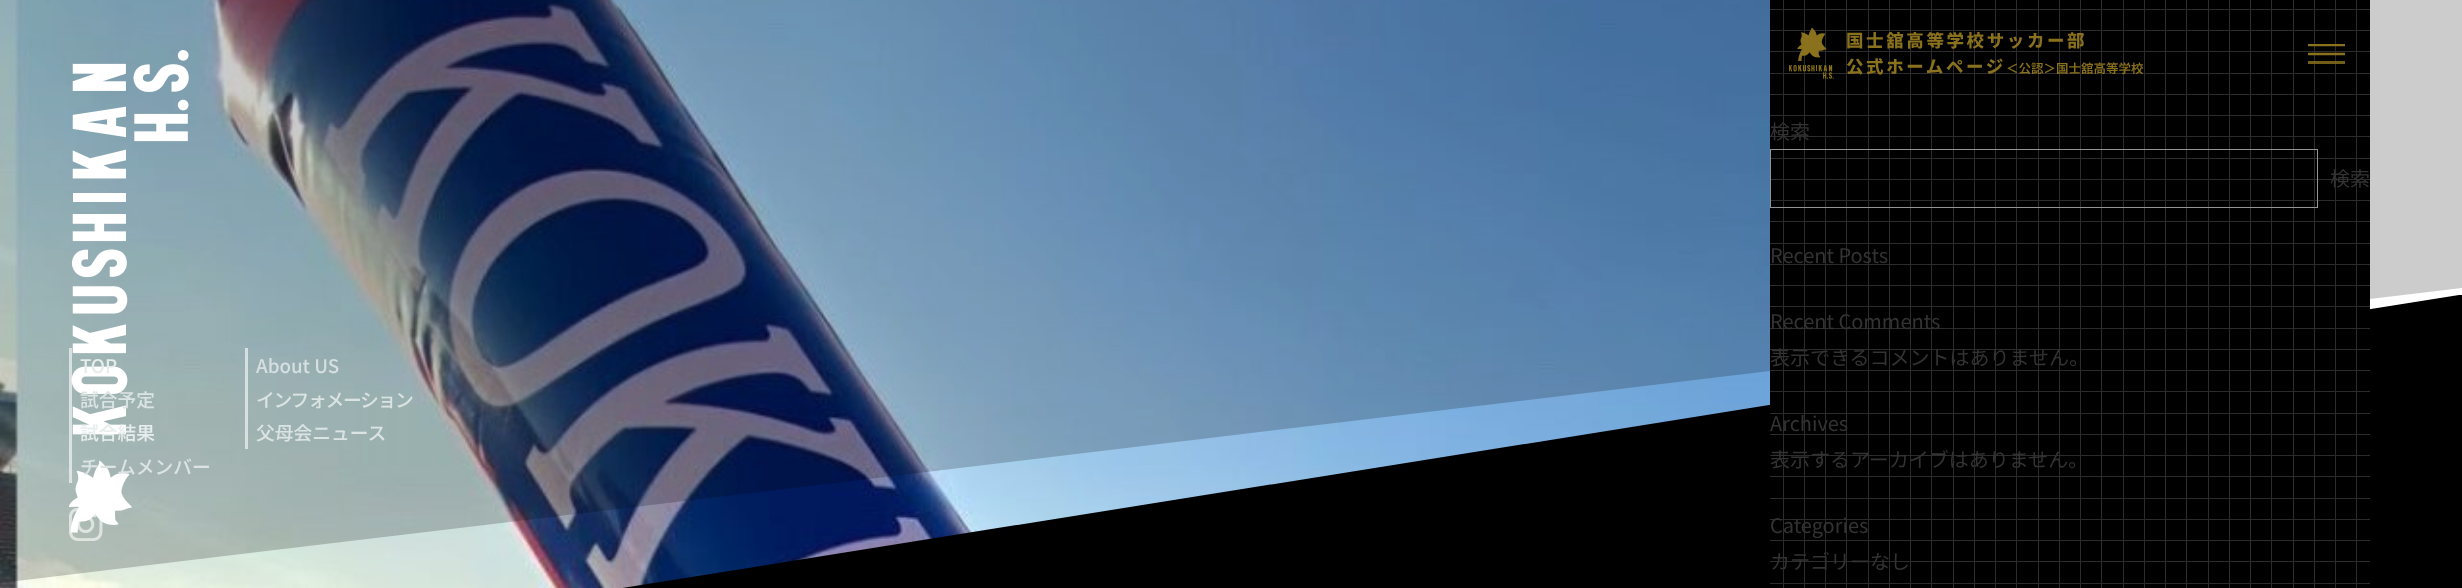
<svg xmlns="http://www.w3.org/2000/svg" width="2462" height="588">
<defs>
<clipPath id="clip1"><rect x="2308" y="44" width="37" height="20"/></clipPath>
</defs>
<rect width="100%" height="100%" fill="#fff"/>
<image x="0" y="0" width="1770" height="588" href="media/1.png"/>
<path d="M2462 295v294h-1846l1843-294z" fill="#000"/>
<path d="M0 0v583l2462-295v-288z" fill="#00000033"/>
<image x="69" y="50" width="120" height="483" href="media/2.png"/>
<rect x="69" y="348" width="3" height="135" fill="#ffffff99"/>
<text x="80" y="373" style="font-family:Noto Sans JP;font-size:18.75px;font-weight:500;fill:#e7edec">TOP</text>
<text x="80" y="407" style="font-family:Noto Sans JP;font-size:18.75px;font-weight:500;fill:#dce4e3">試合予定</text>
<text x="80" y="440" style="font-family:Noto Sans JP;font-size:18.75px;font-weight:500;fill:#e7edec">試合結果</text>
<text x="80" y="474" style="font-family:Noto Sans JP;font-size:18.75px;font-weight:500;fill:#dce4e3">チームメンバー</text>
<rect x="245" y="348" width="3" height="101" fill="#ffffff99"/>
<text x="256" y="373" style="font-family:Noto Sans JP;font-size:18.75px;font-weight:500;fill:#d6dfe1">About US</text>
<text x="256" y="407" style="font-family:Noto Sans JP;font-size:18.75px;font-weight:500;letter-spacing:-1.25px;fill:#dce4e3">インフォメーション</text>
<text x="256" y="440" style="font-family:Noto Sans JP;font-size:18.75px;font-weight:500;fill:#dce4e3">父母会ニュース</text>
<image x="69" y="508" width="34" height="33" href="media/3.png"/>
<rect x="1770" width="600" height="405" fill="#000"/>
<image x="1783" y="0" width="574" height="588" href="media/4.png"/>
<image x="1770" y="9" width="600" height="575" href="media/5.png"/>
<image x="1789" y="28" width="45" height="51" href="media/6.png"/>
<text x="1846" y="47" style="font-family:Noto Sans JP;font-size:17.5px;font-weight:800;letter-spacing:2.6px;fill:#8a711d">国士舘高等学校サッカー部</text>
<text x="1846" y="73" style="font-family:Noto Sans JP;font-size:17.5px;font-weight:800;letter-spacing:2.6px;fill:#8a711d">公式ホームページ</text>
<text x="2006" y="73" style="font-family:Noto Sans JP;font-size:12.5px;font-weight:600;fill:#8a711d">＜公認＞国士舘高等学校</text>
<g clip-path="url(#clip1)">
<path d="M2307.5 45h37.5m-37.5 9h37.5" fill="none" stroke="#8a711d" stroke-width="2.5"/>
</g>
<rect x="2308" y="61" width="37" height="3" fill="#8a711dd4"/>
<text x="1770" y="139" style="font-family:Noto Sans JP;font-size:20px;fill:#333">検索</text>
<rect x="1770.5" y="149.5" width="547" height="58" fill="none" stroke="#949494"/>
<text x="2330" y="186" style="font-family:Noto Sans JP;font-size:20px;fill:#333">検索</text>
<text x="1770" y="263" style="font-family:Noto Sans JP;font-size:20px;fill:#333">Recent Posts</text>
<text x="1770" y="329" style="font-family:Noto Sans JP;font-size:20px;fill:#333">Recent Comments</text>
<text x="1770" y="365" style="font-family:Noto Sans JP;font-size:20px;fill:#333">表示できるコメントはありません</text>
<text x="2069" y="365" style="font-family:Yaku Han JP;font-size:20px;fill:#333">。</text>
<text x="1770" y="431" style="font-family:Noto Sans JP;font-size:20px;fill:#333">Archives</text>
<text x="1770" y="467" style="font-family:Noto Sans JP;font-size:20px;fill:#333">表示するアーカイブはありません</text>
<text x="2068" y="467" style="font-family:Yaku Han JP;font-size:20px;fill:#333">。</text>
<text x="1770" y="533" style="font-family:Noto Sans JP;font-size:20px;fill:#333">Categories</text>
<text x="1770" y="569" style="font-family:Noto Sans JP;font-size:20px;fill:#333">カテゴリーなし</text>
</svg>
